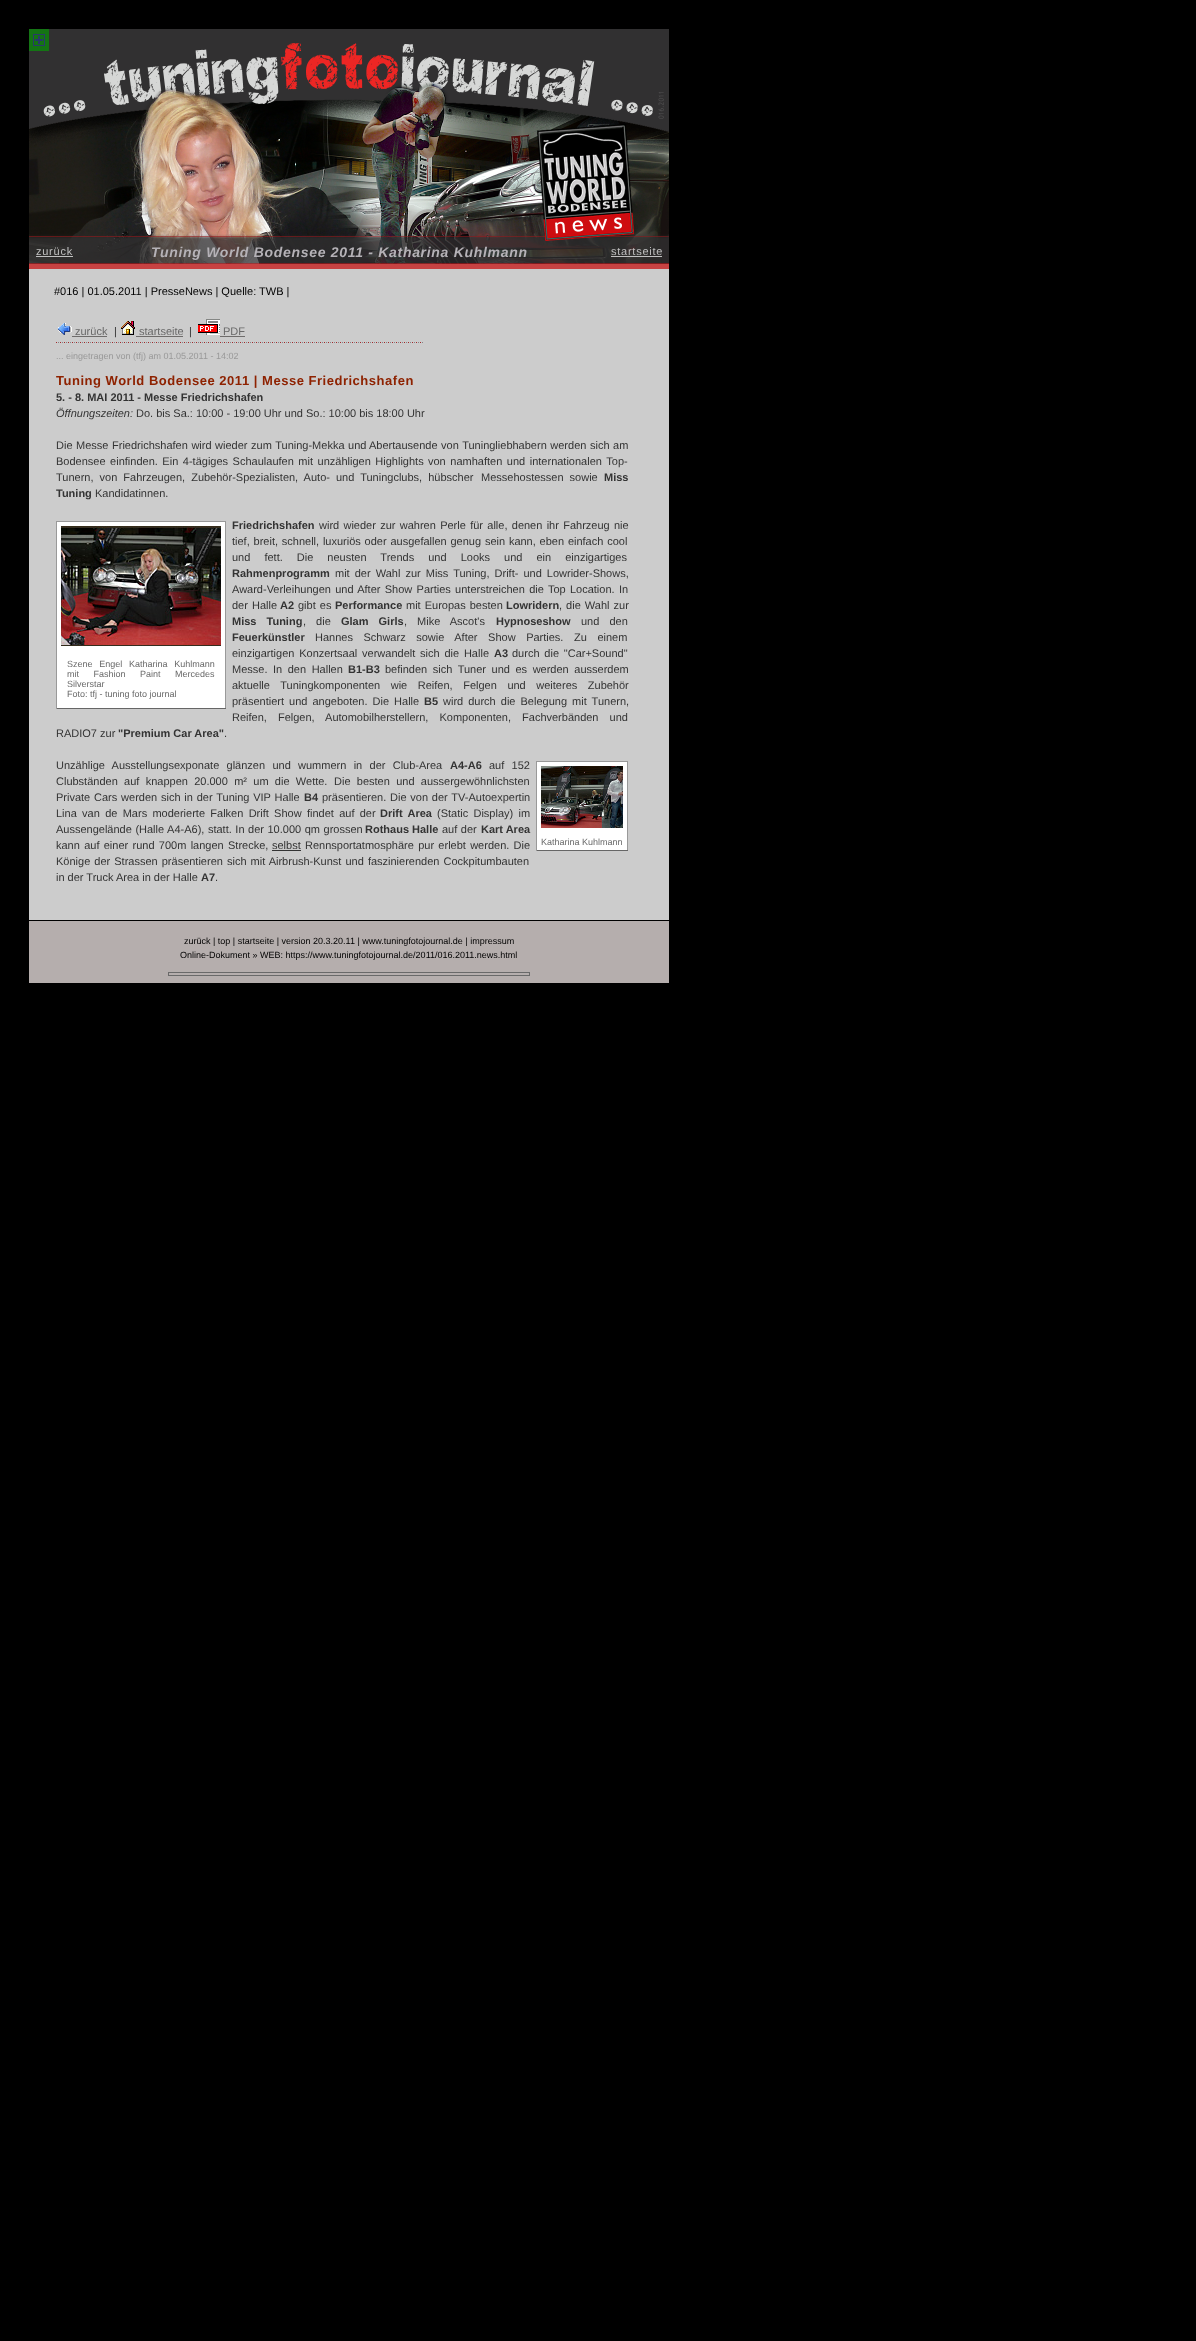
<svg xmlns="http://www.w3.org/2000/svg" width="1196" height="2341">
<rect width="100%" height="100%" fill="#000"/>
<image x="29" y="43" width="640" height="226" href="media/2.png"/>
<rect x="29" y="29" width="20" height="22" fill="#147414"/>
<image x="33" y="34" width="12" height="12" href="media/1.png"/>
<rect x="29" y="269" width="640" height="651" fill="#ccc"/>
<rect x="49" y="29" width="620" height="14" fill="#313031"/>
<text x="36" y="255" style="font-family:Liberation Sans;font-size:11px;letter-spacing:0.75px;fill:#c0c0c0">zurück</text>
<rect x="36" y="256" width="37" height="1" fill="#c0c0c0"/>
<text x="151" y="257" style="font-family:Liberation Sans;font-size:14px;font-weight:bold;font-style:italic;letter-spacing:0.7px;fill:#b5b2b7">Tuning World Bodensee 2011 - Katharina Kuhlmann</text>
<text x="611" y="255" style="font-family:Liberation Sans;font-size:11px;letter-spacing:0.75px;fill:#c0c0c0">startseite</text>
<rect x="611" y="256" width="51" height="1" fill="#c0c0c0"/>
<text x="54" y="295" style="font-family:Liberation Sans;font-size:11px;fill:#000">#016 | 01.05.2011 | PresseNews | Quelle: TWB |</text>
<image x="58" y="323" width="14" height="12" href="media/3.png"/>
<text x="75" y="335" style="font-family:Liberation Sans;font-size:11px;fill:#696969">zurück</text>
<rect x="72" y="336" width="35" height="1" fill="#6e6c6b"/>
<text x="114" y="335" style="font-family:Liberation Sans;font-size:11px;fill:#333">|</text>
<image x="121" y="321" width="14" height="14" href="media/4.png"/>
<text x="139" y="335" style="font-family:Liberation Sans;font-size:11px;fill:#696969">startseite</text>
<rect x="136" y="336" width="47" height="1" fill="#6e6c6b"/>
<text x="189" y="335" style="font-family:Liberation Sans;font-size:11px;fill:#333">|</text>
<image x="198" y="319" width="22" height="16" href="media/5.png"/>
<text x="223" y="335" style="font-family:Liberation Sans;font-size:11px;fill:#696969">PDF</text>
<rect x="220" y="336" width="25" height="1" fill="#6e6c6b"/>
<image x="56" y="342" width="367" height="1" href="media/6.png"/>
<text x="56" y="359" style="font-family:Liberation Sans;font-size:9px;fill:#999">... eingetragen von (tfj) am 01.05.2011 - 14:02</text>
<text x="56" y="385" style="font-family:Liberation Sans;font-size:13px;font-weight:bold;letter-spacing:0.52px;fill:#8e2201">Tuning World Bodensee 2011 | Messe Friedrichshafen</text>
<text x="56" y="401" style="font-family:Liberation Sans;font-size:11px;font-weight:bold;fill:#333">5. - 8. MAI 2011 - Messe Friedrichshafen</text>
<text x="56" y="417" style="font-family:Liberation Sans;font-size:11px;font-style:italic;fill:#333">Öffnungszeiten:</text>
<text x="136" y="417" style="font-family:Liberation Sans;font-size:11px;fill:#333">Do. bis Sa.: 10:00 - 19:00 Uhr und So.: 10:00 bis 18:00 Uhr</text>
<text x="56" y="449" word-spacing="0.5" style="font-family:Liberation Sans;font-size:11px;fill:#333">Die Messe Friedrichshafen wird wieder zum Tuning-Mekka und</text>
<text x="369" y="449" word-spacing="0.5" style="font-family:Liberation Sans;font-size:11px;fill:#333">Abertausende von Tuningliebhabern werden sich am</text>
<text x="56" y="465" word-spacing="1.5" style="font-family:Liberation Sans;font-size:11px;fill:#333">Bodensee einfinden. Ein 4-tägiges Schaulaufen mit unzähligen Highlights</text>
<text x="428" y="465" word-spacing="1.5" style="font-family:Liberation Sans;font-size:11px;fill:#333">von namhaften und internationalen Top-</text>
<text x="56" y="481" word-spacing="3" style="font-family:Liberation Sans;font-size:11px;fill:#333">Tunern, von Fahrzeugen, Zubehör-Spezialisten, Auto- und Tuningclubs, hübscher</text>
<text x="481" y="481" word-spacing="3" style="font-family:Liberation Sans;font-size:11px;fill:#333">Messehostessen sowie</text>
<text x="604" y="481" style="font-family:Liberation Sans;font-size:11px;font-weight:bold;fill:#333">Miss</text>
<text x="56" y="497" style="font-family:Liberation Sans;font-size:11px;font-weight:bold;fill:#333">Tuning</text>
<text x="95" y="497" style="font-family:Liberation Sans;font-size:11px;fill:#333">Kandidatinnen.</text>
<text x="232" y="529" style="font-family:Liberation Sans;font-size:11px;font-weight:bold;fill:#333">Friedrichshafen</text>
<text x="319" y="529" word-spacing="1.25" style="font-family:Liberation Sans;font-size:11px;fill:#333">wird wieder zur wahren Perle für alle, denen ihr Fahrzeug nie</text>
<text x="232" y="545" word-spacing="0.75" style="font-family:Liberation Sans;font-size:11px;fill:#333">tief, breit, schnell, luxuriös oder ausgefallen genug sein kann, eben einfach cool</text>
<text x="232" y="561" word-spacing="11" style="font-family:Liberation Sans;font-size:11px;fill:#333">und fett. Die neusten Trends und Looks und ein einzigartiges</text>
<text x="232" y="577" style="font-family:Liberation Sans;font-size:11px;font-weight:bold;fill:#333">Rahmenprogramm</text>
<text x="335" y="577" word-spacing="2" style="font-family:Liberation Sans;font-size:11px;fill:#333">mit der Wahl zur Miss Tuning, Drift- und Lowrider-Shows,</text>
<text x="232" y="593" word-spacing="1.25" style="font-family:Liberation Sans;font-size:11px;fill:#333">Award-Verleihungen und After Show Parties unterstreichen die Top Location.</text>
<text x="619" y="593" style="font-family:Liberation Sans;font-size:11px;fill:#333">In</text>
<text x="232" y="609" word-spacing="1" style="font-family:Liberation Sans;font-size:11px;fill:#333">der Halle</text>
<text x="280" y="609" style="font-family:Liberation Sans;font-size:11px;font-weight:bold;fill:#333">A2</text>
<text x="298" y="609" word-spacing="1" style="font-family:Liberation Sans;font-size:11px;fill:#333">gibt es</text>
<text x="335" y="609" style="font-family:Liberation Sans;font-size:11px;font-weight:bold;fill:#333">Performance</text>
<text x="406" y="609" word-spacing="1" style="font-family:Liberation Sans;font-size:11px;fill:#333">mit Europas besten</text>
<text x="506" y="609" style="font-family:Liberation Sans;font-size:11px;font-weight:bold;fill:#333">Lowridern</text>
<text x="559" y="609" word-spacing="1" style="font-family:Liberation Sans;font-size:11px;fill:#333">, die Wahl zur</text>
<text x="232" y="625" word-spacing="7" style="font-family:Liberation Sans;font-size:11px;font-weight:bold;fill:#333">Miss Tuning</text>
<text x="303" y="625" word-spacing="7" style="font-family:Liberation Sans;font-size:11px;fill:#333">, die</text>
<text x="341" y="625" word-spacing="7" style="font-family:Liberation Sans;font-size:11px;font-weight:bold;fill:#333">Glam Girls</text>
<text x="404" y="625" word-spacing="7" style="font-family:Liberation Sans;font-size:11px;fill:#333">, Mike Ascot's</text>
<text x="496" y="625" style="font-family:Liberation Sans;font-size:11px;font-weight:bold;fill:#333">Hypnoseshow</text>
<text x="581" y="625" word-spacing="7" style="font-family:Liberation Sans;font-size:11px;fill:#333">und den</text>
<text x="232" y="641" style="font-family:Liberation Sans;font-size:11px;font-weight:bold;fill:#333">Feuerkünstler</text>
<text x="315" y="641" word-spacing="7.5" style="font-family:Liberation Sans;font-size:11px;fill:#333">Hannes Schwarz sowie After Show Parties. Zu einem</text>
<text x="232" y="657" word-spacing="1.75" style="font-family:Liberation Sans;font-size:11px;fill:#333">einzigartigen Konzertsaal verwandelt sich die Halle</text>
<text x="494" y="657" style="font-family:Liberation Sans;font-size:11px;font-weight:bold;fill:#333">A3</text>
<text x="512" y="657" word-spacing="1.75" style="font-family:Liberation Sans;font-size:11px;fill:#333">durch die "Car+Sound"</text>
<rect x="57" y="522" width="168" height="186" fill="#fff"/>
<rect x="56" y="521" width="170" height="1" fill="#999"/>
<rect x="225" y="521" width="1" height="188" fill="#999"/>
<rect x="56" y="708" width="170" height="1" fill="#666"/>
<rect x="56" y="521" width="1" height="188" fill="#999"/>
<image x="61" y="526" width="160" height="120" href="media/7.png"/>
<text x="67" y="667" word-spacing="4.25" style="font-family:Liberation Sans;font-size:9px;fill:#696969">Szene Engel Katharina Kuhlmann</text>
<text x="67" y="677" word-spacing="12" style="font-family:Liberation Sans;font-size:9px;fill:#696969">mit Fashion Paint Mercedes</text>
<text x="67" y="687" style="font-family:Liberation Sans;font-size:9px;fill:#696969">Silverstar</text>
<text x="67" y="697" style="font-family:Liberation Sans;font-size:9px;fill:#696969">Foto: tfj - tuning foto journal</text>
<text x="232" y="673" word-spacing="2.5" style="font-family:Liberation Sans;font-size:11px;fill:#333">Messe. In den Hallen</text>
<text x="348" y="673" style="font-family:Liberation Sans;font-size:11px;font-weight:bold;fill:#333">B1-B3</text>
<text x="385" y="673" word-spacing="2.5" style="font-family:Liberation Sans;font-size:11px;fill:#333">befinden sich Tuner und es werden ausserdem</text>
<text x="232" y="689" word-spacing="7.5" style="font-family:Liberation Sans;font-size:11px;fill:#333">aktuelle Tuningkomponenten wie Reifen, Felgen und weiteres Zubehör</text>
<text x="232" y="705" word-spacing="2" style="font-family:Liberation Sans;font-size:11px;fill:#333">präsentiert und angeboten. Die Halle</text>
<text x="424" y="705" style="font-family:Liberation Sans;font-size:11px;font-weight:bold;fill:#333">B5</text>
<text x="443" y="705" word-spacing="2" style="font-family:Liberation Sans;font-size:11px;fill:#333">wird durch die Belegung mit Tunern,</text>
<text x="232" y="721" word-spacing="8" style="font-family:Liberation Sans;font-size:11px;fill:#333">Reifen, Felgen, Automobilherstellern, Komponenten, Fachverbänden und</text>
<text x="56" y="737" style="font-family:Liberation Sans;font-size:11px;fill:#333">RADIO7 zur</text>
<text x="118" y="737" style="font-family:Liberation Sans;font-size:11px;font-weight:bold;fill:#333">"Premium Car Area"</text>
<text x="224" y="737" style="font-family:Liberation Sans;font-size:11px;fill:#333">.</text>
<text x="56" y="769" word-spacing="4.25" style="font-family:Liberation Sans;font-size:11px;fill:#333">Unzählige Ausstellungsexponate glänzen und wummern in der Club-Area</text>
<text x="450" y="769" style="font-family:Liberation Sans;font-size:11px;font-weight:bold;fill:#333">A4-A6</text>
<text x="489" y="769" word-spacing="4.25" style="font-family:Liberation Sans;font-size:11px;fill:#333">auf 152</text>
<text x="56" y="785" word-spacing="3.25" style="font-family:Liberation Sans;font-size:11px;fill:#333">Clubständen auf knappen 20.000 m² um die Wette.</text>
<text x="334" y="785" word-spacing="3.25" style="font-family:Liberation Sans;font-size:11px;fill:#333">Die besten und aussergewöhnlichsten</text>
<text x="56" y="801" word-spacing="0.75" style="font-family:Liberation Sans;font-size:11px;fill:#333">Private Cars werden sich in der Tuning VIP Halle</text>
<text x="304" y="801" style="font-family:Liberation Sans;font-size:11px;font-weight:bold;fill:#333">B4</text>
<text x="322" y="801" style="font-family:Liberation Sans;font-size:11px;fill:#333">präsentieren.</text>
<text x="390" y="801" word-spacing="0.75" style="font-family:Liberation Sans;font-size:11px;fill:#333">Die von der TV-Autoexpertin</text>
<text x="56" y="817" word-spacing="2.25" style="font-family:Liberation Sans;font-size:11px;fill:#333">Lina van de Mars moderierte Falken Drift Show findet auf der</text>
<text x="380" y="817" word-spacing="2.25" style="font-family:Liberation Sans;font-size:11px;font-weight:bold;fill:#333">Drift Area</text>
<text x="437" y="817" word-spacing="2.25" style="font-family:Liberation Sans;font-size:11px;fill:#333">(Static Display) im</text>
<text x="56" y="833" word-spacing="0.5" style="font-family:Liberation Sans;font-size:11px;fill:#333">Aussengelände (Halle A4-A6), statt. In der 10.000 qm grossen</text>
<text x="365" y="833" style="font-family:Liberation Sans;font-size:11px;font-weight:bold;fill:#333">Rothaus Halle</text>
<text x="442" y="833" word-spacing="0.5" style="font-family:Liberation Sans;font-size:11px;fill:#333">auf der</text>
<text x="481" y="833" style="font-family:Liberation Sans;font-size:11px;font-weight:bold;fill:#333">Kart Area</text>
<text x="56" y="849" word-spacing="1.25" style="font-family:Liberation Sans;font-size:11px;fill:#333">kann auf einer rund 700m langen Strecke,</text>
<text x="272" y="849" style="font-family:Liberation Sans;font-size:11px;fill:#333">selbst</text>
<rect x="272" y="850" width="29" height="1" fill="#333"/>
<text x="305" y="849" word-spacing="1.25" style="font-family:Liberation Sans;font-size:11px;fill:#333">Rennsportatmosphäre pur erlebt werden. Die</text>
<rect x="537" y="762" width="90" height="88" fill="#fff"/>
<rect x="536" y="761" width="92" height="1" fill="#999"/>
<rect x="627" y="761" width="1" height="90" fill="#999"/>
<rect x="536" y="850" width="92" height="1" fill="#666"/>
<rect x="536" y="761" width="1" height="90" fill="#999"/>
<image x="541" y="766" width="82" height="62" href="media/8.png"/>
<text x="541" y="845" style="font-family:Liberation Sans;font-size:9px;fill:#696969">Katharina Kuhlmann</text>
<text x="56" y="865" word-spacing="1" style="font-family:Liberation Sans;font-size:11px;fill:#333">Könige der Strassen präsentieren sich mit Airbrush-Kunst und faszinierenden Cockpitumbauten</text>
<text x="56" y="881" style="font-family:Liberation Sans;font-size:11px;fill:#333">in der Truck Area in der Halle</text>
<text x="201" y="881" style="font-family:Liberation Sans;font-size:11px;font-weight:bold;fill:#333">A7</text>
<text x="215" y="881" style="font-family:Liberation Sans;font-size:11px;fill:#333">.</text>
<rect x="29" y="921" width="640" height="62" fill="#b5aead"/>
<text x="184" y="944" style="font-family:Liberation Sans;font-size:9px;fill:#000">zurück | top | startseite | version 20.3.20.11 | www.tuningfotojournal.de | impressum</text>
<text x="180" y="958" style="font-family:Liberation Sans;font-size:9px;fill:#000">Online-Dokument » WEB: https://www.tuningfotojournal.de/2011/016.2011.news.html</text>
<rect x="168.5" y="972.5" width="361" height="3" fill="none" stroke="#696969"/>
</svg>
